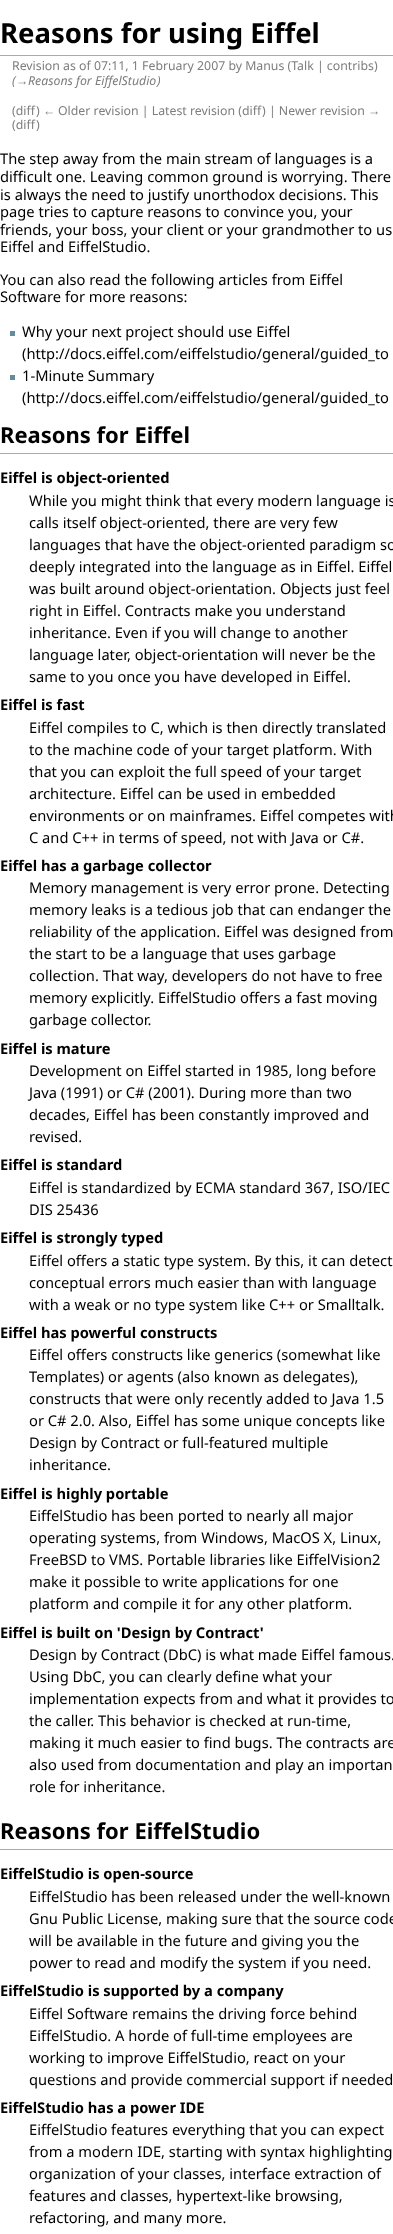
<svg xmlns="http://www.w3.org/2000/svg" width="393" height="2234">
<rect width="100%" height="100%" fill="#fff"/>
<rect y="55" width="393" height="1" fill="#aaa"/>
<text x="0" y="43" style="font-family:Noto Sans;font-size:27.5px;font-weight:bold;fill:#000">Reasons for using Eiffel</text>
<text x="12" y="70" style="font-family:Noto Sans;font-size:12.3px;fill:#7d7d7d">Revision as of 07:11, 1 February 2007 by Manus (Talk | contribs)</text>
<text x="12" y="85" style="font-family:Noto Sans;font-size:12.3px;font-style:italic;fill:#7d7d7d">(</text>
<text x="16" y="85" style="font-family:Liberation Serif;font-size:12.3px;font-style:italic;fill:#7d7d7d">→</text>
<text x="28" y="85" style="font-family:Noto Sans;font-size:12.3px;font-style:italic;fill:#7d7d7d">Reasons for EiffelStudio</text>
<text x="157" y="85" style="font-family:Noto Sans;font-size:12.3px;font-style:italic;fill:#7d7d7d">)</text>
<text x="12" y="115" style="font-family:Noto Sans;font-size:12.3px;fill:#7d7d7d">(diff</text>
<text x="36" y="115" style="font-family:Noto Sans;font-size:12.3px;fill:#7d7d7d">)</text>
<text x="43" y="115" style="font-family:Liberation Serif;font-size:12.3px;fill:#7d7d7d">←</text>
<text x="58" y="115" style="font-family:Noto Sans;font-size:12.3px;fill:#7d7d7d">Older revision | Latest revision (diff</text>
<text x="262" y="115" style="font-family:Noto Sans;font-size:12.3px;fill:#7d7d7d">) | Newer revision</text>
<text x="368" y="115" style="font-family:Liberation Serif;font-size:12.3px;fill:#7d7d7d">→</text>
<text x="12" y="129" style="font-family:Noto Sans;font-size:12.3px;fill:#7d7d7d">(diff</text>
<text x="36" y="129" style="font-family:Noto Sans;font-size:12.3px;fill:#7d7d7d">)</text>
<text x="0" y="164" style="font-family:Noto Sans;font-size:14.7px;fill:#000">The step away from the main stream of languages is a</text>
<text x="0" y="182" style="font-family:Noto Sans;font-size:14.7px;fill:#000">difficult one. Leaving common ground is worrying. There</text>
<text x="0" y="200" style="font-family:Noto Sans;font-size:14.7px;fill:#000">is always the need to justify unorthodox decisions. This</text>
<text x="0" y="217" style="font-family:Noto Sans;font-size:14.7px;fill:#000">page tries to capture reasons to convince you, your</text>
<text x="0" y="235" style="font-family:Noto Sans;font-size:14.7px;fill:#000">friends, your boss, your client or your grandmother to us</text>
<text x="0" y="252" style="font-family:Noto Sans;font-size:14.7px;fill:#000">Eiffel and EiffelStudio.</text>
<text x="0" y="285" style="font-family:Noto Sans;font-size:14.7px;fill:#000">You can also read the following articles from Eiffel</text>
<text x="0" y="302" style="font-family:Noto Sans;font-size:14.7px;fill:#000">Software for more reasons:</text>
<rect x="10" y="331" width="5" height="5" fill="#638c9c"/>
<text x="22" y="337" style="font-family:Noto Sans;font-size:14.7px;fill:#000">Why your next project should use Eiffel</text>
<text x="22" y="359" style="font-family:Noto Sans;font-size:14.7px;fill:#000">(http://docs.eiffel.com/eiffelstudio/general/guided_to</text>
<rect x="10" y="375" width="5" height="5" fill="#638c9c"/>
<text x="22" y="381" style="font-family:Noto Sans;font-size:14.7px;fill:#000">1-Minute Summary</text>
<text x="22" y="403" style="font-family:Noto Sans;font-size:14.7px;fill:#000">(http://docs.eiffel.com/eiffelstudio/general/guided_to</text>
<rect y="453" width="393" height="1" fill="#aaa"/>
<text x="0" y="443" style="font-family:Noto Sans;font-size:22px;font-weight:bold;fill:#000">Reasons for Eiffel</text>
<text x="0" y="483" style="font-family:Noto Sans;font-size:14.7px;font-weight:bold;fill:#000">Eiffel is object-oriented</text>
<text x="29" y="506" style="font-family:Noto Sans;font-size:14.7px;fill:#000">While you might think that every modern language is</text>
<text x="29" y="528" style="font-family:Noto Sans;font-size:14.7px;fill:#000">calls itself object-oriented, there are very few</text>
<text x="29" y="550" style="font-family:Noto Sans;font-size:14.7px;fill:#000">languages that have the object-oriented paradigm so</text>
<text x="29" y="572" style="font-family:Noto Sans;font-size:14.7px;fill:#000">deeply integrated into the language as in Eiffel. Eiffel</text>
<text x="29" y="594" style="font-family:Noto Sans;font-size:14.7px;fill:#000">was built around object-orientation. Objects just feel</text>
<text x="29" y="616" style="font-family:Noto Sans;font-size:14.7px;fill:#000">right in Eiffel. Contracts make you understand</text>
<text x="29" y="638" style="font-family:Noto Sans;font-size:14.7px;fill:#000">inheritance. Even if you will change to another</text>
<text x="29" y="660" style="font-family:Noto Sans;font-size:14.7px;fill:#000">language later, object-orientation will never be the</text>
<text x="29" y="682" style="font-family:Noto Sans;font-size:14.7px;fill:#000">same to you once you have developed in Eiffel.</text>
<text x="0" y="710" style="font-family:Noto Sans;font-size:14.7px;font-weight:bold;fill:#000">Eiffel is fast</text>
<text x="29" y="733" style="font-family:Noto Sans;font-size:14.7px;fill:#000">Eiffel compiles to C, which is then directly translated</text>
<text x="29" y="755" style="font-family:Noto Sans;font-size:14.7px;fill:#000">to the machine code of your target platform. With</text>
<text x="29" y="777" style="font-family:Noto Sans;font-size:14.7px;fill:#000">that you can exploit the full speed of your target</text>
<text x="29" y="799" style="font-family:Noto Sans;font-size:14.7px;fill:#000">architecture. Eiffel can be used in embedded</text>
<text x="29" y="821" style="font-family:Noto Sans;font-size:14.7px;fill:#000">environments or on mainframes. Eiffel competes with</text>
<text x="29" y="843" style="font-family:Noto Sans;font-size:14.7px;fill:#000">C and C++ in terms of speed, not with Java or C#.</text>
<text x="0" y="871" style="font-family:Noto Sans;font-size:14.7px;font-weight:bold;fill:#000">Eiffel has a garbage collector</text>
<text x="29" y="893" style="font-family:Noto Sans;font-size:14.7px;fill:#000">Memory management is very error prone. Detecting</text>
<text x="29" y="915" style="font-family:Noto Sans;font-size:14.7px;fill:#000">memory leaks is a tedious job that can endanger the</text>
<text x="29" y="937" style="font-family:Noto Sans;font-size:14.7px;fill:#000">reliability of the application. Eiffel was designed from</text>
<text x="29" y="959" style="font-family:Noto Sans;font-size:14.7px;fill:#000">the start to be a language that uses garbage</text>
<text x="29" y="981" style="font-family:Noto Sans;font-size:14.7px;fill:#000">collection. That way, developers do not have to free</text>
<text x="29" y="1003" style="font-family:Noto Sans;font-size:14.7px;fill:#000">memory explicitly. EiffelStudio offers a fast moving</text>
<text x="29" y="1025" style="font-family:Noto Sans;font-size:14.7px;fill:#000">garbage collector.</text>
<text x="0" y="1054" style="font-family:Noto Sans;font-size:14.7px;font-weight:bold;fill:#000">Eiffel is mature</text>
<text x="29" y="1076" style="font-family:Noto Sans;font-size:14.7px;fill:#000">Development on Eiffel started in 1985, long before</text>
<text x="29" y="1098" style="font-family:Noto Sans;font-size:14.7px;fill:#000">Java (1991) or C# (2001). During more than two</text>
<text x="29" y="1120" style="font-family:Noto Sans;font-size:14.7px;fill:#000">decades, Eiffel has been constantly improved and</text>
<text x="29" y="1142" style="font-family:Noto Sans;font-size:14.7px;fill:#000">revised.</text>
<text x="0" y="1170" style="font-family:Noto Sans;font-size:14.7px;font-weight:bold;fill:#000">Eiffel is standard</text>
<text x="29" y="1193" style="font-family:Noto Sans;font-size:14.7px;fill:#000">Eiffel is standardized by ECMA standard 367, ISO/IEC</text>
<text x="29" y="1215" style="font-family:Noto Sans;font-size:14.7px;fill:#000">DIS 25436</text>
<text x="0" y="1243" style="font-family:Noto Sans;font-size:14.7px;font-weight:bold;fill:#000">Eiffel is strongly typed</text>
<text x="29" y="1266" style="font-family:Noto Sans;font-size:14.7px;fill:#000">Eiffel offers a static type system. By this, it can detect</text>
<text x="29" y="1288" style="font-family:Noto Sans;font-size:14.7px;fill:#000">conceptual errors much easier than with language</text>
<text x="29" y="1310" style="font-family:Noto Sans;font-size:14.7px;fill:#000">with a weak or no type system like C++ or Smalltalk.</text>
<text x="0" y="1338" style="font-family:Noto Sans;font-size:14.7px;font-weight:bold;fill:#000">Eiffel has powerful constructs</text>
<text x="29" y="1360" style="font-family:Noto Sans;font-size:14.7px;fill:#000">Eiffel offers constructs like generics (somewhat like</text>
<text x="29" y="1382" style="font-family:Noto Sans;font-size:14.7px;fill:#000">Templates) or agents (also known as delegates),</text>
<text x="29" y="1404" style="font-family:Noto Sans;font-size:14.7px;fill:#000">constructs that were only recently added to Java 1.5</text>
<text x="29" y="1426" style="font-family:Noto Sans;font-size:14.7px;fill:#000">or C# 2.0. Also, Eiffel has some unique concepts like</text>
<text x="29" y="1448" style="font-family:Noto Sans;font-size:14.7px;fill:#000">Design by Contract or full-featured multiple</text>
<text x="29" y="1470" style="font-family:Noto Sans;font-size:14.7px;fill:#000">inheritance.</text>
<text x="0" y="1499" style="font-family:Noto Sans;font-size:14.7px;font-weight:bold;fill:#000">Eiffel is highly portable</text>
<text x="29" y="1521" style="font-family:Noto Sans;font-size:14.7px;fill:#000">EiffelStudio has been ported to nearly all major</text>
<text x="29" y="1543" style="font-family:Noto Sans;font-size:14.7px;fill:#000">operating systems, from Windows, MacOS X, Linux,</text>
<text x="29" y="1565" style="font-family:Noto Sans;font-size:14.7px;fill:#000">FreeBSD to VMS. Portable libraries like EiffelVision2</text>
<text x="29" y="1587" style="font-family:Noto Sans;font-size:14.7px;fill:#000">make it possible to write applications for one</text>
<text x="29" y="1609" style="font-family:Noto Sans;font-size:14.7px;fill:#000">platform and compile it for any other platform.</text>
<text x="0" y="1638" style="font-family:Noto Sans;font-size:14.7px;font-weight:bold;fill:#000">Eiffel is built on 'Design by Contract'</text>
<text x="29" y="1660" style="font-family:Noto Sans;font-size:14.7px;fill:#000">Design by Contract (DbC) is what made Eiffel famous.</text>
<text x="29" y="1682" style="font-family:Noto Sans;font-size:14.7px;fill:#000">Using DbC, you can clearly define what your</text>
<text x="29" y="1704" style="font-family:Noto Sans;font-size:14.7px;fill:#000">implementation expects from and what it provides to</text>
<text x="29" y="1726" style="font-family:Noto Sans;font-size:14.7px;fill:#000">the caller. This behavior is checked at run-time,</text>
<text x="29" y="1748" style="font-family:Noto Sans;font-size:14.7px;fill:#000">making it much easier to find bugs. The contracts are</text>
<text x="29" y="1770" style="font-family:Noto Sans;font-size:14.7px;fill:#000">also used from documentation and play an importan</text>
<text x="29" y="1792" style="font-family:Noto Sans;font-size:14.7px;fill:#000">role for inheritance.</text>
<rect y="1849" width="393" height="1" fill="#aaa"/>
<text x="0" y="1839" style="font-family:Noto Sans;font-size:22px;font-weight:bold;fill:#000">Reasons for EiffelStudio</text>
<text x="0" y="1879" style="font-family:Noto Sans;font-size:14.7px;font-weight:bold;fill:#000">EiffelStudio is open-source</text>
<text x="29" y="1902" style="font-family:Noto Sans;font-size:14.7px;fill:#000">EiffelStudio has been released under the well-known</text>
<text x="29" y="1924" style="font-family:Noto Sans;font-size:14.7px;fill:#000">Gnu Public License, making sure that the source code</text>
<text x="29" y="1946" style="font-family:Noto Sans;font-size:14.7px;fill:#000">will be available in the future and giving you the</text>
<text x="29" y="1968" style="font-family:Noto Sans;font-size:14.7px;fill:#000">power to read and modify the system if you need.</text>
<text x="0" y="1996" style="font-family:Noto Sans;font-size:14.7px;font-weight:bold;fill:#000">EiffelStudio is supported by a company</text>
<text x="29" y="2019" style="font-family:Noto Sans;font-size:14.7px;fill:#000">Eiffel Software remains the driving force behind</text>
<text x="29" y="2041" style="font-family:Noto Sans;font-size:14.7px;fill:#000">EiffelStudio. A horde of full-time employees are</text>
<text x="29" y="2063" style="font-family:Noto Sans;font-size:14.7px;fill:#000">working to improve EiffelStudio, react on your</text>
<text x="29" y="2085" style="font-family:Noto Sans;font-size:14.7px;fill:#000">questions and provide commercial support if needed</text>
<text x="0" y="2113" style="font-family:Noto Sans;font-size:14.7px;font-weight:bold;fill:#000">EiffelStudio has a power IDE</text>
<text x="29" y="2135" style="font-family:Noto Sans;font-size:14.7px;fill:#000">EiffelStudio features everything that you can expect</text>
<text x="29" y="2157" style="font-family:Noto Sans;font-size:14.7px;fill:#000">from a modern IDE, starting with syntax highlighting</text>
<text x="29" y="2179" style="font-family:Noto Sans;font-size:14.7px;fill:#000">organization of your classes, interface extraction of</text>
<text x="29" y="2201" style="font-family:Noto Sans;font-size:14.7px;fill:#000">features and classes, hypertext-like browsing,</text>
<text x="29" y="2223" style="font-family:Noto Sans;font-size:14.7px;fill:#000">refactoring, and many more.</text>
</svg>
